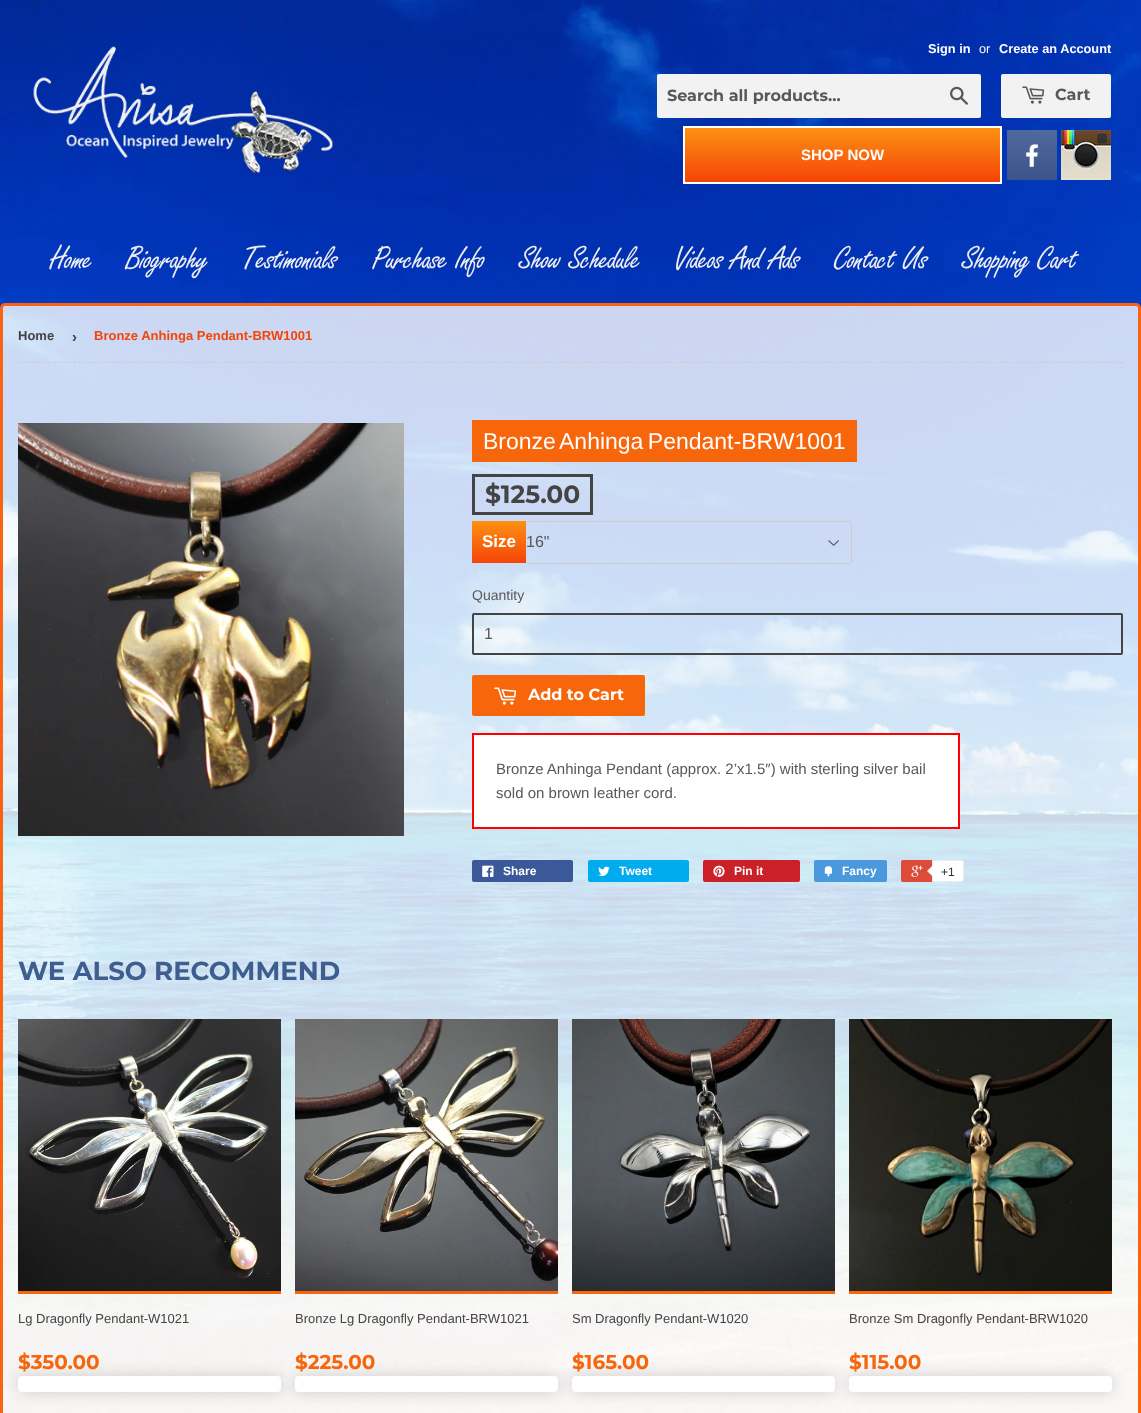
<svg xmlns="http://www.w3.org/2000/svg" width="1141" height="1413">
<defs>
<linearGradient id="g1" gradientUnits="userSpaceOnUse" x1="843" y1="128" x2="843" y2="182"><stop offset="0" stop-color="#fd9112"/><stop offset="1" stop-color="#f44408"/></linearGradient>
<linearGradient id="g2" gradientUnits="userSpaceOnUse" x1="499" y1="521" x2="499" y2="563"><stop offset="0" stop-color="#fd9112"/><stop offset="1" stop-color="#f44408"/></linearGradient>
</defs>
<rect width="100%" height="100%" fill="#fff"/>
<image x="0" y="0" width="1141" height="1413" href="media/1.png"/>
<image x="33" y="46" width="300" height="127" href="media/2.png"/>
<text x="928" y="53" style="font-family:Liberation Sans;font-size:12.75px;font-weight:bold;fill:#fff">Sign in</text>
<text x="979" y="53" style="font-family:Liberation Sans;font-size:12.75px;fill:#fff">or</text>
<text x="999" y="53" style="font-family:Liberation Sans;font-size:12.75px;font-weight:bold;fill:#fff">Create an Account</text>
<rect x="657" y="74" width="324" height="44" rx="2" fill="#f2f2f2"/>
<text x="667" y="101" style="font-family:Montserrat;font-size:16px;font-weight:100;fill:#585858">Search all products...</text>
<image x="950" y="86" width="18" height="19" href="media/3.png"/>
<rect x="1001" y="74" width="110" height="44" rx="2" fill="#f2f2f2"/>
<image x="1022" y="86" width="23" height="18" href="media/4.png"/>
<text x="1055" y="100" style="font-family:Montserrat;font-size:16px;font-weight:100;fill:#585858">Cart</text>
<rect x="685" y="128" width="315" height="54" fill="url(#g1)"/>
<rect x="684" y="127" width="317" height="56" fill="none" stroke="#fff" stroke-width="2"/>
<text x="801" y="160" style="font-family:Liberation Sans;font-size:15px;font-weight:bold;fill:#fff">SHOP NOW</text>
<image x="1007" y="130" width="50" height="50" href="media/5.png"/>
<image x="1061" y="130" width="50" height="50" href="media/6.png"/>
<text x="50" y="269" style="font-family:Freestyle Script;font-size:35px;letter-spacing:-1px;fill:#eee">Home</text>
<text x="126" y="269" style="font-family:Freestyle Script;font-size:35px;letter-spacing:-1px;fill:#eee">Biography</text>
<text x="242" y="269" style="font-family:Freestyle Script;font-size:35px;letter-spacing:-1px;fill:#eee">Testimonials</text>
<text x="372" y="269" style="font-family:Freestyle Script;font-size:35px;letter-spacing:-1px;fill:#eee">Purchase Info</text>
<text x="519" y="269" style="font-family:Freestyle Script;font-size:35px;letter-spacing:-1px;fill:#eee">Show Schedule</text>
<text x="674" y="269" style="font-family:Freestyle Script;font-size:35px;letter-spacing:-1px;fill:#eee">Videos And Ads</text>
<text x="834" y="269" style="font-family:Freestyle Script;font-size:35px;letter-spacing:-1px;fill:#eee">Contact Us</text>
<text x="962" y="269" style="font-family:Freestyle Script;font-size:35px;letter-spacing:-1px;fill:#eee">Shopping Cart</text>
<rect x="1.5" y="304.5" width="1138" height="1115" rx="3.5" fill="#ffffffcc" stroke="#f96311" stroke-width="3"/>
<path d="M18 362.5h1105" fill="none" stroke="#ccc" stroke-dasharray="3 2.01"/>
<text x="18" y="340" style="font-family:Liberation Sans;font-size:13px;font-weight:bold;fill:#444">Home</text>
<text x="72" y="342" style="font-family:Liberation Sans;font-size:15px;font-weight:bold;fill:#444">›</text>
<text x="94" y="340" style="font-family:Liberation Sans;font-size:13px;font-weight:bold;fill:#f44408">Bronze Anhinga Pendant-BRW1001</text>
<image x="18" y="423" width="386" height="413" href="media/7.png"/>
<rect x="472" y="420" width="385" height="42" fill="#f8660c"/>
<text x="483" y="449" word-spacing="-2" style="font-family:Liberation Sans;font-size:23px;fill:#fff">Bronze Anhinga Pendant-BRW1001</text>
<rect x="473.5" y="475.5" width="118" height="38" fill="none" stroke="#444" stroke-width="3"/>
<text x="485" y="503" style="font-family:Montserrat;font-size:25px;font-weight:100;fill:#444">$125.00</text>
<rect x="472" y="521" width="54" height="42" fill="url(#g2)"/>
<text x="482" y="547" style="font-family:Liberation Sans;font-size:17px;font-weight:bold;fill:#fff">Size</text>
<image x="828" y="540" width="11" height="6" href="media/8.png"/>
<rect x="527" y="521" width="324" height="1" fill="#ccc"/>
<rect x="851" y="522" width="1" height="41" fill="#ccc"/>
<rect x="527" y="563" width="324" height="1" fill="#ccc"/>
<text x="526" y="547" style="font-family:Liberation Sans;font-size:16px;fill:#585858">16"</text>
<text x="472" y="600" style="font-family:Liberation Sans;font-size:14px;fill:#585858">Quantity</text>
<rect x="473" y="614" width="649" height="40" rx="1" fill="none" stroke="#444" stroke-width="2"/>
<text x="484" y="639" style="font-family:Liberation Sans;font-size:16px;fill:#585858">1</text>
<rect x="472" y="675" width="173" height="41" rx="2" fill="#f8660c"/>
<image x="494" y="687" width="23" height="18" href="media/9.png"/>
<text x="528" y="700" style="font-family:Montserrat;font-size:16px;font-weight:100;fill:#fff">Add to Cart</text>
<rect x="473" y="734" width="486" height="94" fill="#fff" stroke="#f00" stroke-width="2"/>
<text x="496" y="774" style="font-family:Liberation Sans;font-size:15px;fill:#585858">Bronze Anhinga Pendant (approx. 2’x1.5″) with sterling silver bail</text>
<text x="496" y="798" style="font-family:Liberation Sans;font-size:15px;fill:#585858">sold on brown leather cord.</text>
<rect x="472" y="860" width="101" height="22" rx="2" fill="#3b5998"/>
<image x="482" y="865" width="12" height="12" href="media/10.png"/>
<text x="503" y="875" style="font-family:Liberation Sans;font-size:12px;font-weight:bold;fill:#fff">Share</text>
<rect x="588" y="860" width="101" height="22" rx="2" fill="#00aced"/>
<image x="598" y="866" width="12" height="10" href="media/11.png"/>
<text x="619" y="875" style="font-family:Liberation Sans;font-size:12px;font-weight:bold;fill:#fff">Tweet</text>
<rect x="703" y="860" width="97" height="22" rx="2" fill="#cb2027"/>
<image x="713" y="865" width="12" height="12" href="media/12.png"/>
<text x="734" y="875" style="font-family:Liberation Sans;font-size:12px;font-weight:bold;fill:#fff">Pin it</text>
<rect x="814" y="860" width="73" height="22" rx="2" fill="#4999dc"/>
<image x="824" y="866" width="9" height="11" href="media/13.png"/>
<text x="842" y="875" style="font-family:Liberation Sans;font-size:12px;font-weight:bold;fill:#fff">Fancy</text>
<rect x="901" y="860" width="61" height="22" rx="2" fill="#dd4b39"/>
<image x="911" y="865" width="12" height="12" href="media/14.png"/>
<path d="M932.5 860.5h29.5c1 0 1.5 .5 1.5 1.5v18c0 1-.5 1.5-1.5 1.5h-29.5z" fill="#fff" stroke="#ececec"/>
<path d="M933 865v12l-6-6z" fill="#ececec"/>
<path d="M934 865v12l-6-6z" fill="#fff"/>
<text x="941" y="876" style="font-family:Liberation Sans;font-size:12px;fill:#333">+1</text>
<text x="18" y="980" style="font-family:Montserrat;font-size:26px;font-weight:100;fill:#3e5e8f">WE ALSO RECOMMEND</text>
<image x="18" y="1019" width="263" height="272" href="media/15.png"/>
<rect x="18" y="1291" width="263" height="3" fill="#f8660c"/>
<text x="18" y="1323" style="font-family:Liberation Sans;font-size:13px;fill:#444">Lg Dragonfly Pendant-W1021</text>
<rect x="18" y="1376" width="263" height="16" rx="4" fill="#ccc" filter="blur(7.5px)"/>
<text x="18" y="1369" style="font-family:Montserrat;font-size:20px;font-weight:100;fill:#f8660c">$350.00</text>
<rect x="18" y="1376" width="263" height="16" rx="4" fill="#fff"/>
<image x="295" y="1019" width="263" height="272" href="media/16.png"/>
<rect x="295" y="1291" width="263" height="3" fill="#f8660c"/>
<text x="295" y="1323" style="font-family:Liberation Sans;font-size:13px;fill:#444">Bronze Lg Dragonfly Pendant-BRW1021</text>
<rect x="295" y="1376" width="263" height="16" rx="4" fill="#ccc" filter="blur(7.5px)"/>
<text x="295" y="1369" style="font-family:Montserrat;font-size:20px;font-weight:100;fill:#f8660c">$225.00</text>
<rect x="295" y="1376" width="263" height="16" rx="4" fill="#fff"/>
<image x="572" y="1019" width="263" height="272" href="media/17.png"/>
<rect x="572" y="1291" width="263" height="3" fill="#f8660c"/>
<text x="572" y="1323" style="font-family:Liberation Sans;font-size:13px;fill:#444">Sm Dragonfly Pendant-W1020</text>
<rect x="572" y="1376" width="263" height="16" rx="4" fill="#ccc" filter="blur(7.5px)"/>
<text x="572" y="1369" style="font-family:Montserrat;font-size:20px;font-weight:100;fill:#f8660c">$165.00</text>
<rect x="572" y="1376" width="263" height="16" rx="4" fill="#fff"/>
<image x="849" y="1019" width="263" height="272" href="media/18.png"/>
<rect x="849" y="1291" width="263" height="3" fill="#f8660c"/>
<text x="849" y="1323" style="font-family:Liberation Sans;font-size:13px;fill:#444">Bronze Sm Dragonfly Pendant-BRW1020</text>
<rect x="849" y="1376" width="263" height="16" rx="4" fill="#ccc" filter="blur(7.5px)"/>
<text x="849" y="1369" style="font-family:Montserrat;font-size:20px;font-weight:100;fill:#f8660c">$115.00</text>
<rect x="849" y="1376" width="263" height="16" rx="4" fill="#fff"/>
</svg>
